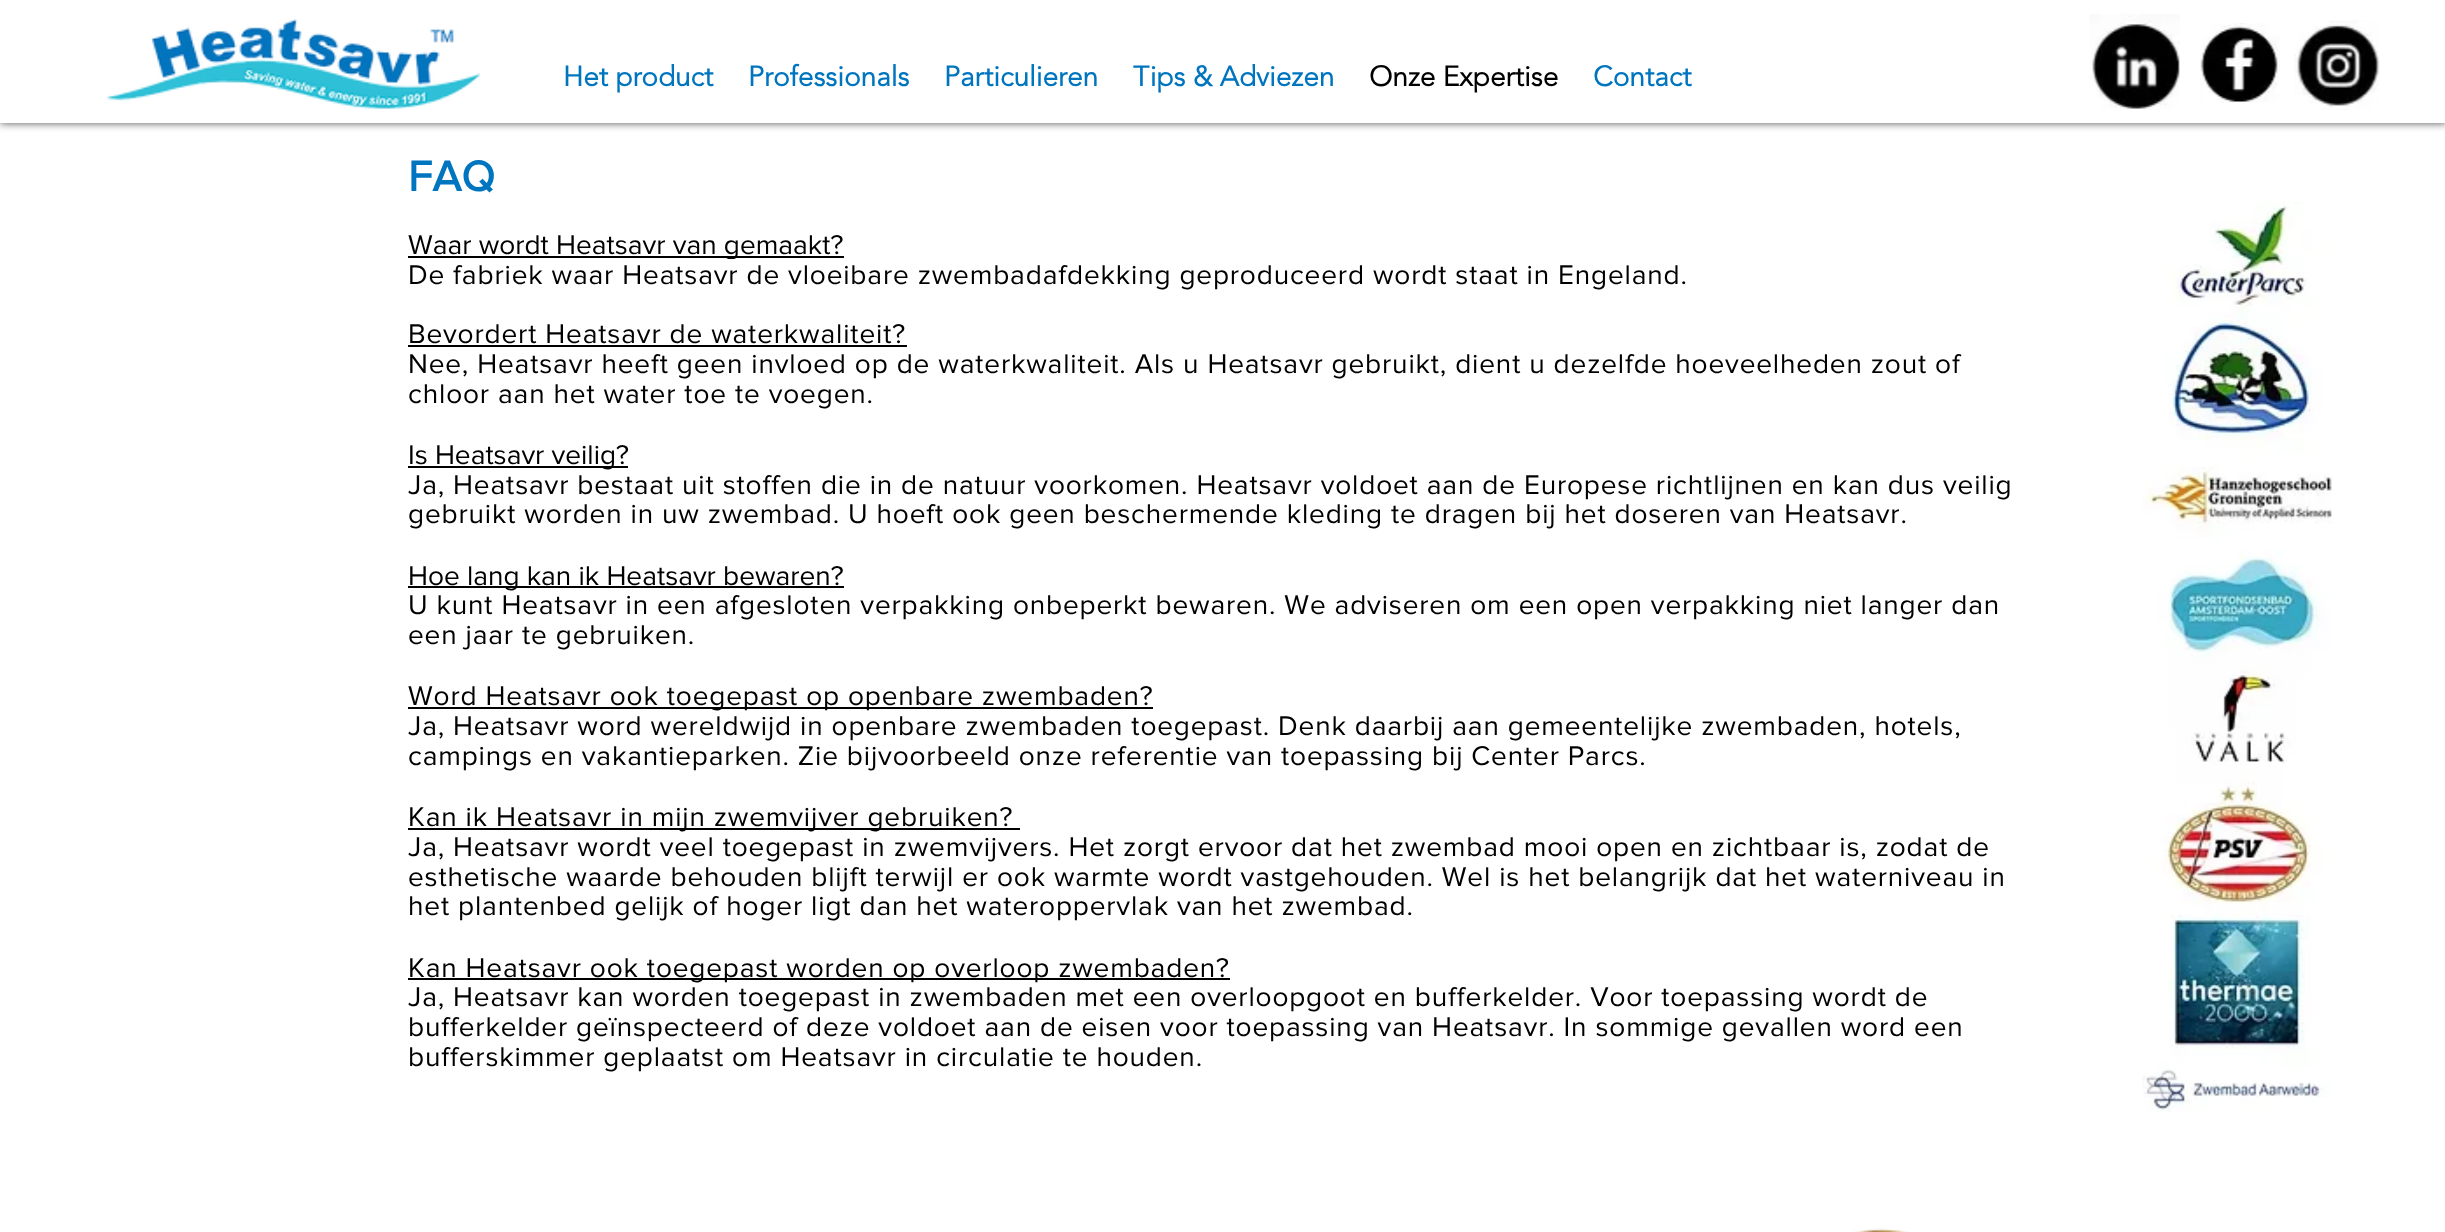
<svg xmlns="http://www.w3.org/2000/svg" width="2445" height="1232">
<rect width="100%" height="100%" fill="#fff"/>
<rect width="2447" height="123" fill="#000000b3" filter="blur(4.5px)"/>
<rect width="2445" height="123" fill="#fff"/>
<image x="106" y="19" width="375" height="90" href="media/1.png"/>
<image x="2089" y="14" width="91" height="96" href="media/2.png"/>
<image x="2200" y="23" width="80" height="80" href="media/3.png"/>
<image x="2294" y="20" width="86" height="90" href="media/4.png"/>
<text x="563" y="86" style="font-family:'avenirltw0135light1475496';font-size:28px;font-weight:bold;fill:#0075bf">Het product</text>
<text x="748" y="86" style="font-family:'avenirltw0135light1475496';font-size:28px;font-weight:bold;fill:#0075bf">Professionals</text>
<text x="944" y="86" style="font-family:'avenirltw0135light1475496';font-size:28px;font-weight:bold;fill:#0075bf">Particulieren</text>
<text x="1133" y="86" style="font-family:'avenirltw0135light1475496';font-size:28px;font-weight:bold;fill:#0075bf">Tips &amp; Adviezen</text>
<text x="1369" y="86" style="font-family:'avenirltw0135light1475496';font-size:28px;font-weight:bold;fill:#000">Onze Expertise</text>
<text x="1593" y="86" style="font-family:'avenirltw0135light1475496';font-size:28px;font-weight:bold;fill:#0075bf">Contact</text>
<text x="408" y="191" style="font-family:'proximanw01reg';font-size:44px;font-weight:bold;fill:#0075bf">FAQ</text>
<rect x="408" y="256" width="436" height="2" fill="#000"/>
<text x="408" y="254" style="font-family:'proximanw01reg';font-size:28px;fill:#000">Waar wordt Heatsavr van gemaakt?</text>
<text x="408" y="284" style="font-family:'proximanw01reg';font-size:28px;letter-spacing:0.84px;fill:#000">De fabriek waar Heatsavr de vloeibare zwembadafdekking geproduceerd wordt staat in Engeland.</text>
<rect x="728" y="259" width="6" height="1" fill="#fff"/>
<text x="408" y="343" style="font-family:'proximanw01reg';font-size:28px;letter-spacing:0.84px;fill:#000">Bevordert Heatsavr de waterkwaliteit?</text>
<rect x="408" y="345" width="499" height="2" fill="#000"/>
<text x="408" y="373" style="font-family:'proximanw01reg';font-size:28px;letter-spacing:0.84px;fill:#000">Nee, Heatsavr heeft geen invloed op de waterkwaliteit. Als u Heatsavr gebruikt, dient u dezelfde hoeveelheden zout of</text>
<text x="408" y="403" style="font-family:'proximanw01reg';font-size:28px;letter-spacing:0.84px;fill:#000">chloor aan het water toe te voegen.</text>
<rect x="408" y="466" width="220" height="2" fill="#000"/>
<text x="408" y="464" style="font-family:'proximanw01reg';font-size:28px;fill:#000">Is Heatsavr veilig?</text>
<text x="408" y="494" style="font-family:'proximanw01reg';font-size:28px;letter-spacing:0.84px;fill:#000">Ja, Heatsavr bestaat uit stoffen die in de natuur voorkomen. Heatsavr voldoet aan de Europese richtlijnen en kan dus veilig</text>
<text x="408" y="523" style="font-family:'proximanw01reg';font-size:28px;letter-spacing:0.84px;fill:#000">gebruikt worden in uw zwembad. U hoeft ook geen beschermende kleding te dragen bij het doseren van Heatsavr.</text>
<rect x="408" y="586" width="436" height="2" fill="#000"/>
<text x="408" y="585" style="font-family:'proximanw01reg';font-size:28px;fill:#000">Hoe lang kan ik Heatsavr bewaren?</text>
<text x="408" y="614" style="font-family:'proximanw01reg';font-size:28px;letter-spacing:0.84px;fill:#000">U kunt Heatsavr in een afgesloten verpakking onbeperkt bewaren. We adviseren om een open verpakking niet langer dan</text>
<text x="408" y="644" style="font-family:'proximanw01reg';font-size:28px;letter-spacing:0.84px;fill:#000">een jaar te gebruiken.</text>
<rect x="408" y="707" width="745" height="2" fill="#000"/>
<text x="408" y="705" style="font-family:'proximanw01reg';font-size:28px;letter-spacing:0.84px;fill:#000">Word Heatsavr ook toegepast op openbare zwembaden?</text>
<text x="408" y="735" style="font-family:'proximanw01reg';font-size:28px;letter-spacing:0.84px;fill:#000">Ja, Heatsavr word wereldwijd in openbare zwembaden toegepast. Denk daarbij aan gemeentelijke zwembaden, hotels,</text>
<text x="408" y="765" style="font-family:'proximanw01reg';font-size:28px;letter-spacing:0.84px;fill:#000">campings en vakantieparken. Zie bijvoorbeeld onze referentie van toepassing bij Center Parcs.</text>
<rect x="408" y="828" width="612" height="2" fill="#000"/>
<text x="408" y="826" style="font-family:'proximanw01reg';font-size:28px;letter-spacing:0.84px;fill:#000">Kan ik Heatsavr in mijn zwemvijver gebruiken?</text>
<text x="408" y="856" style="font-family:'proximanw01reg';font-size:28px;letter-spacing:0.84px;fill:#000">Ja, Heatsavr wordt veel toegepast in zwemvijvers. Het zorgt ervoor dat het zwembad mooi open en zichtbaar is, zodat de</text>
<text x="408" y="886" style="font-family:'proximanw01reg';font-size:28px;letter-spacing:0.84px;fill:#000">esthetische waarde behouden blijft terwijl er ook warmte wordt vastgehouden. Wel is het belangrijk dat het waterniveau in</text>
<text x="408" y="915" style="font-family:'proximanw01reg';font-size:28px;letter-spacing:0.84px;fill:#000">het plantenbed gelijk of hoger ligt dan het wateroppervlak van het zwembad.</text>
<rect x="408" y="978" width="822" height="2" fill="#000"/>
<text x="408" y="977" style="font-family:'proximanw01reg';font-size:28px;letter-spacing:0.84px;fill:#000">Kan Heatsavr ook toegepast worden op overloop zwembaden?</text>
<text x="408" y="1006" style="font-family:'proximanw01reg';font-size:28px;letter-spacing:0.84px;fill:#000">Ja, Heatsavr kan worden toegepast in zwembaden met een overloopgoot en bufferkelder. Voor toepassing wordt de</text>
<text x="408" y="1036" style="font-family:'proximanw01reg';font-size:28px;letter-spacing:0.84px;fill:#000">bufferkelder geïnspecteerd of deze voldoet aan de eisen voor toepassing van Heatsavr. In sommige gevallen word een</text>
<text x="408" y="1066" style="font-family:'proximanw01reg';font-size:28px;letter-spacing:0.84px;fill:#000">bufferskimmer geplaatst om Heatsavr in circulatie te houden.</text>
<image x="2142" y="201" width="190" height="911" href="media/5.png"/>
<image x="1853" y="1228" width="57" height="4" href="media/6.png"/>
</svg>
